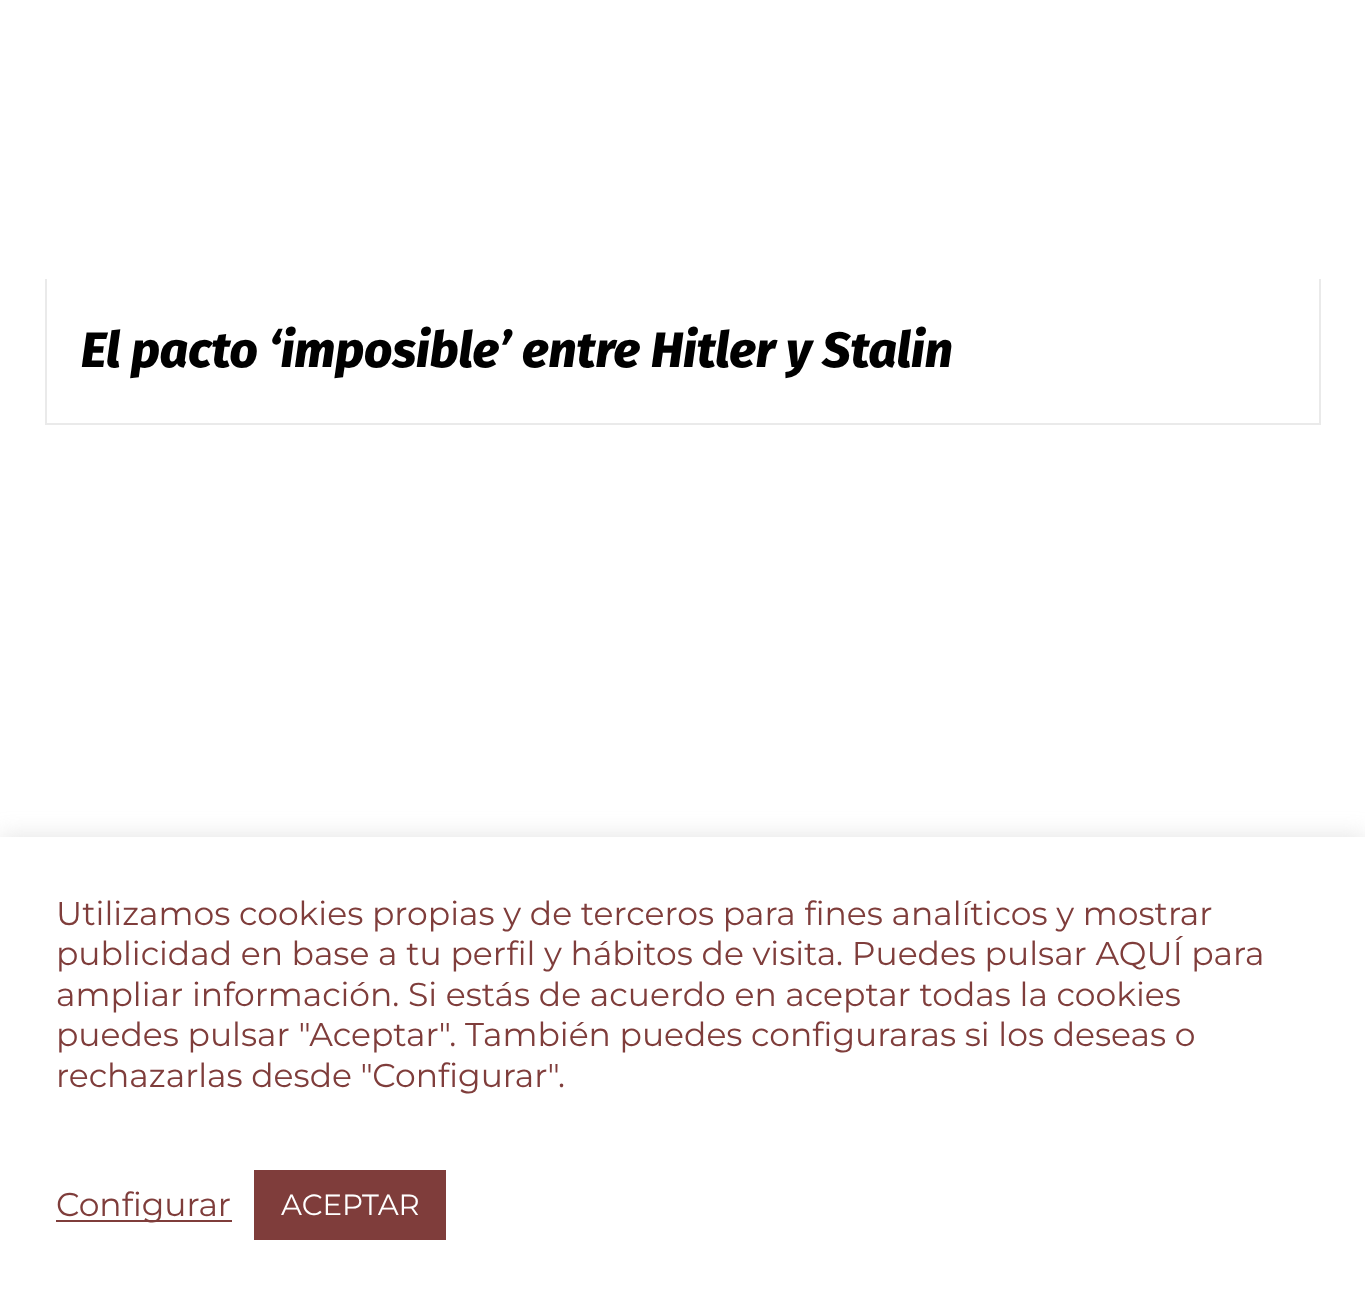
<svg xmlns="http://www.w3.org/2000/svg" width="1365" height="1307">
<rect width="100%" height="100%" fill="#fff"/>
<rect x="1319" y="279" width="2" height="146" fill="#eaeaea"/>
<rect x="45" y="423" width="1276" height="2" fill="#eaeaea"/>
<rect x="45" y="279" width="2" height="146" fill="#eaeaea"/>
<text x="81" y="367" style="font-family:Fira Sans;font-size:49.5px;font-weight:800;font-style:italic;fill:#000">El pacto ‘imposible’ entre Hitler y Stalin</text>
<rect y="835" width="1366" height="470" fill="#acabab4d" filter="blur(11px)"/>
<rect y="837" width="1365" height="470" fill="#fff"/>
<text x="56" y="925" style="font-family:Montserrat;font-size:33px;fill:#7f3d3b">Utilizamos cookies propias y de terceros para fines analíticos y mostrar</text>
<text x="56" y="965" style="font-family:Montserrat;font-size:33px;fill:#7f3d3b">publicidad en base a tu perfil y hábitos de visita. Puedes pulsar AQUÍ para</text>
<text x="56" y="1006" style="font-family:Montserrat;font-size:33px;fill:#7f3d3b">ampliar información. Si estás de acuerdo en aceptar todas la cookies</text>
<text x="56" y="1046" style="font-family:Montserrat;font-size:33px;fill:#7f3d3b">puedes pulsar "Aceptar". También puedes configuraras si los deseas o</text>
<text x="56" y="1087" style="font-family:Montserrat;font-size:33px;fill:#7f3d3b">rechazarlas desde "Configurar".</text>
<rect x="56" y="1220" width="176" height="2" fill="#7f3d3b"/>
<text x="56" y="1216" style="font-family:Montserrat;font-size:33px;fill:#7f3d3b">Configurar</text>
<rect x="254" y="1170" width="192" height="70" fill="#7f3d3b"/>
<text x="281" y="1215" style="font-family:Montserrat;font-size:29.25px;fill:#fff">ACEPTAR</text>
</svg>
